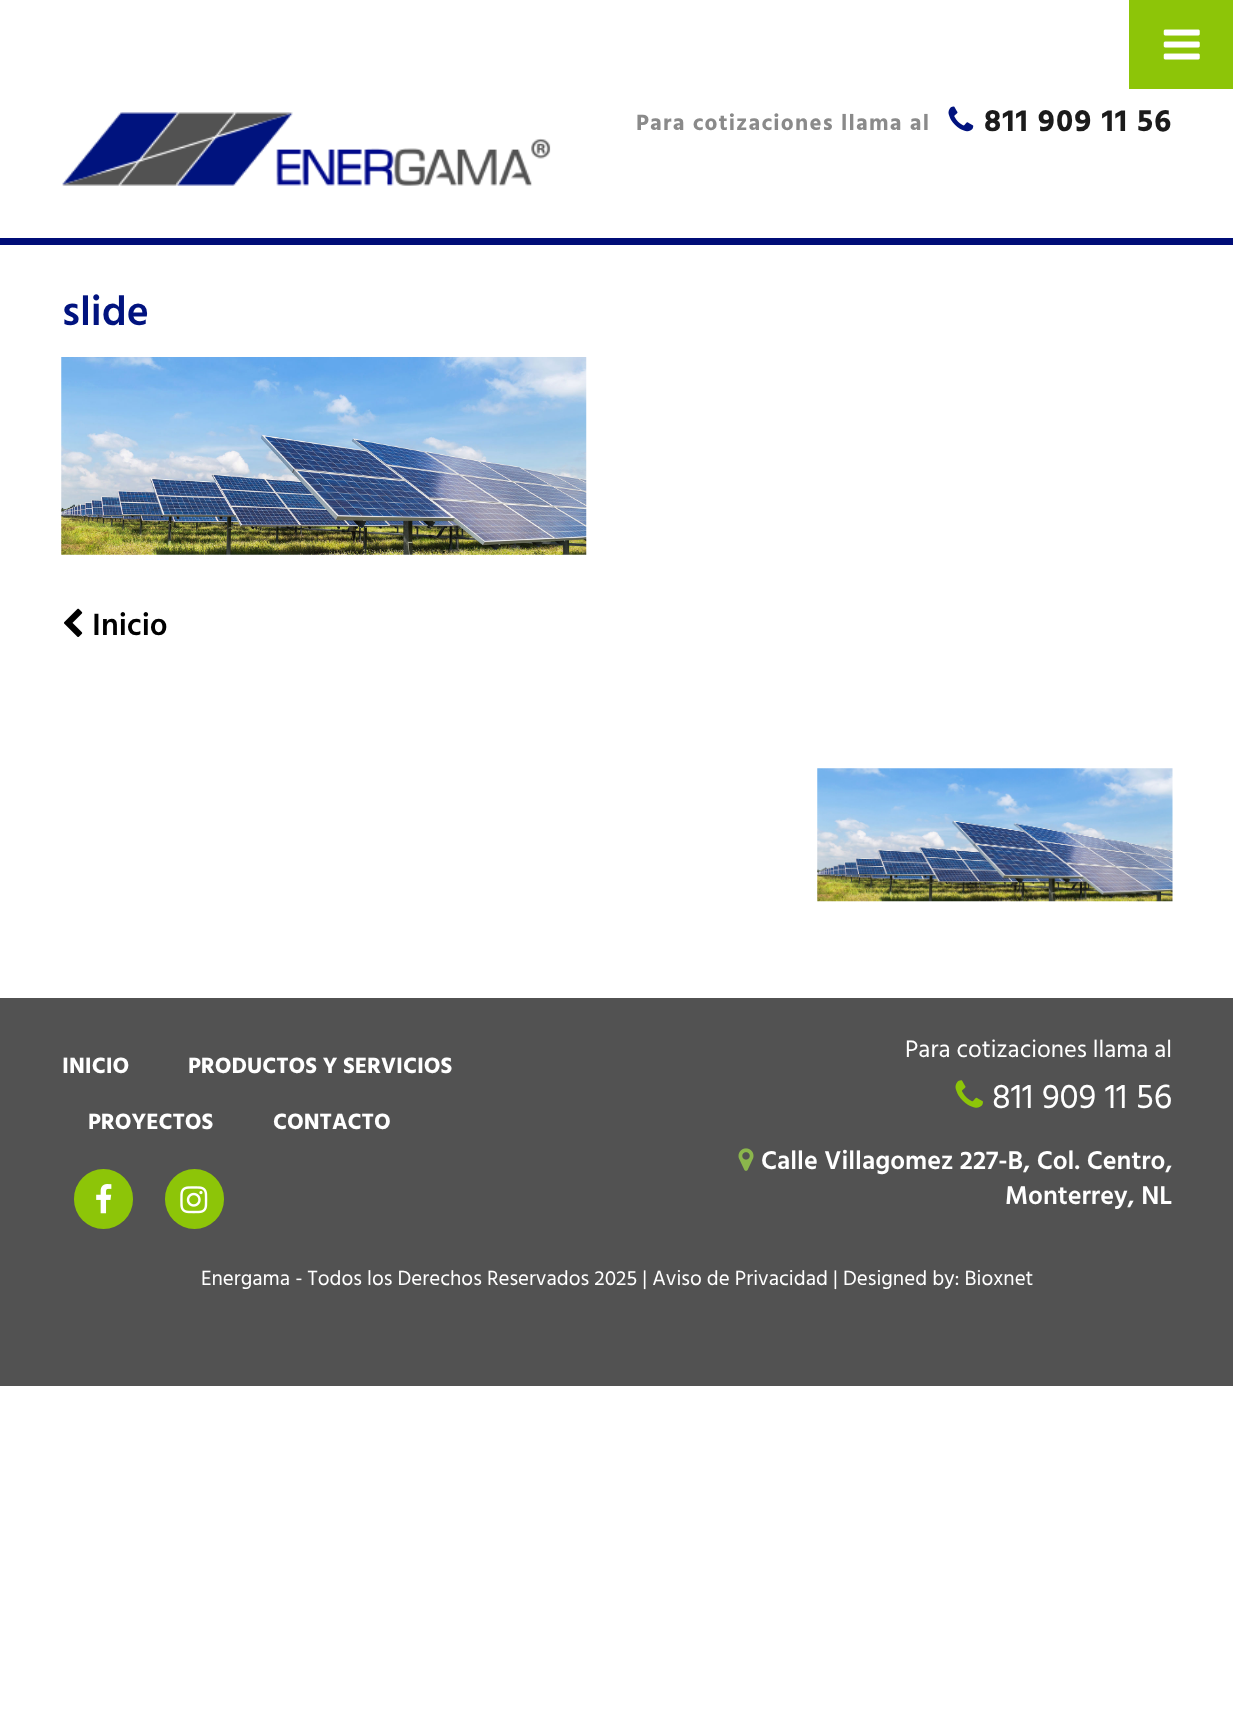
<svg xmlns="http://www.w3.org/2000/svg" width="1233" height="1715">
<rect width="100%" height="100%" fill="#fff"/>
<rect x="1129" width="104" height="89" fill="#8dc508"/>
<image x="1163" y="29" width="37" height="31" href="media/1.png"/>
<image x="62" y="112" width="489" height="74" href="media/2.png"/>
<text x="636" y="130" style="font-family:Hind Guntur;font-size:22.75px;font-weight:bold;letter-spacing:1.25px;fill:#8a8a8a">Para cotizaciones llama al</text>
<image x="948" y="106" width="26" height="26" href="media/3.png"/>
<text x="984" y="131" style="font-family:Hind Guntur;font-size:31.5px;font-weight:bold;letter-spacing:1.25px;fill:#1b1b1b">811 909 11 56</text>
<rect y="238" width="1233" height="7" fill="#000d77"/>
<text x="62" y="325" style="font-family:Hind Guntur;font-size:42px;font-weight:600;fill:#01137f">slide</text>
<image x="61" y="357" width="526" height="198" href="media/4.png"/>
<image x="64" y="608" width="19" height="29" href="media/5.png"/>
<text x="92" y="635" style="font-family:Hind Guntur;font-size:31.5px;font-weight:600;fill:#000">Inicio</text>
<image x="817" y="768" width="356" height="134" href="media/6.png"/>
<rect y="998" width="1233" height="388" fill="#525252"/>
<text x="62" y="1073" style="font-family:Hind Guntur;font-size:22.75px;font-weight:bold;fill:#fff">INICIO</text>
<text x="188" y="1073" style="font-family:Hind Guntur;font-size:22.75px;font-weight:bold;fill:#fff">PRODUCTOS Y SERVICIOS</text>
<text x="88" y="1129" style="font-family:Hind Guntur;font-size:22.75px;font-weight:bold;fill:#fff">PROYECTOS</text>
<text x="273" y="1129" style="font-family:Hind Guntur;font-size:22.75px;font-weight:bold;fill:#fff">CONTACTO</text>
<rect x="74" y="1169" width="59" height="60" rx="29.5" fill="#8dc508"/>
<image x="96" y="1184" width="16" height="30" href="media/7.png"/>
<rect x="165" y="1169" width="59" height="60" rx="29.5" fill="#8dc508"/>
<image x="180" y="1186" width="28" height="28" href="media/8.png"/>
<text x="905" y="1057" style="font-family:Hind Guntur;font-size:24.5px;fill:#fff">Para cotizaciones llama al</text>
<image x="955" y="1080" width="28" height="28" href="media/9.png"/>
<text x="992" y="1108" style="font-family:Hind Guntur;font-size:35px;fill:#fff">811 909 11 56</text>
<image x="738" y="1148" width="16" height="23" href="media/10.png"/>
<text x="761" y="1169" style="font-family:Hind Guntur;font-size:26.25px;font-weight:600;fill:#fff">Calle Villagomez 227-B, Col. Centro,</text>
<text x="1005" y="1204" style="font-family:Hind Guntur;font-size:26.25px;font-weight:600;fill:#fff">Monterrey, NL</text>
<text x="201" y="1285" style="font-family:Hind Guntur;font-size:21px;fill:#fff">Energama - Todos los Derechos Reservados 2025 | Aviso de Privacidad | Designed by: Bioxnet</text>
</svg>
